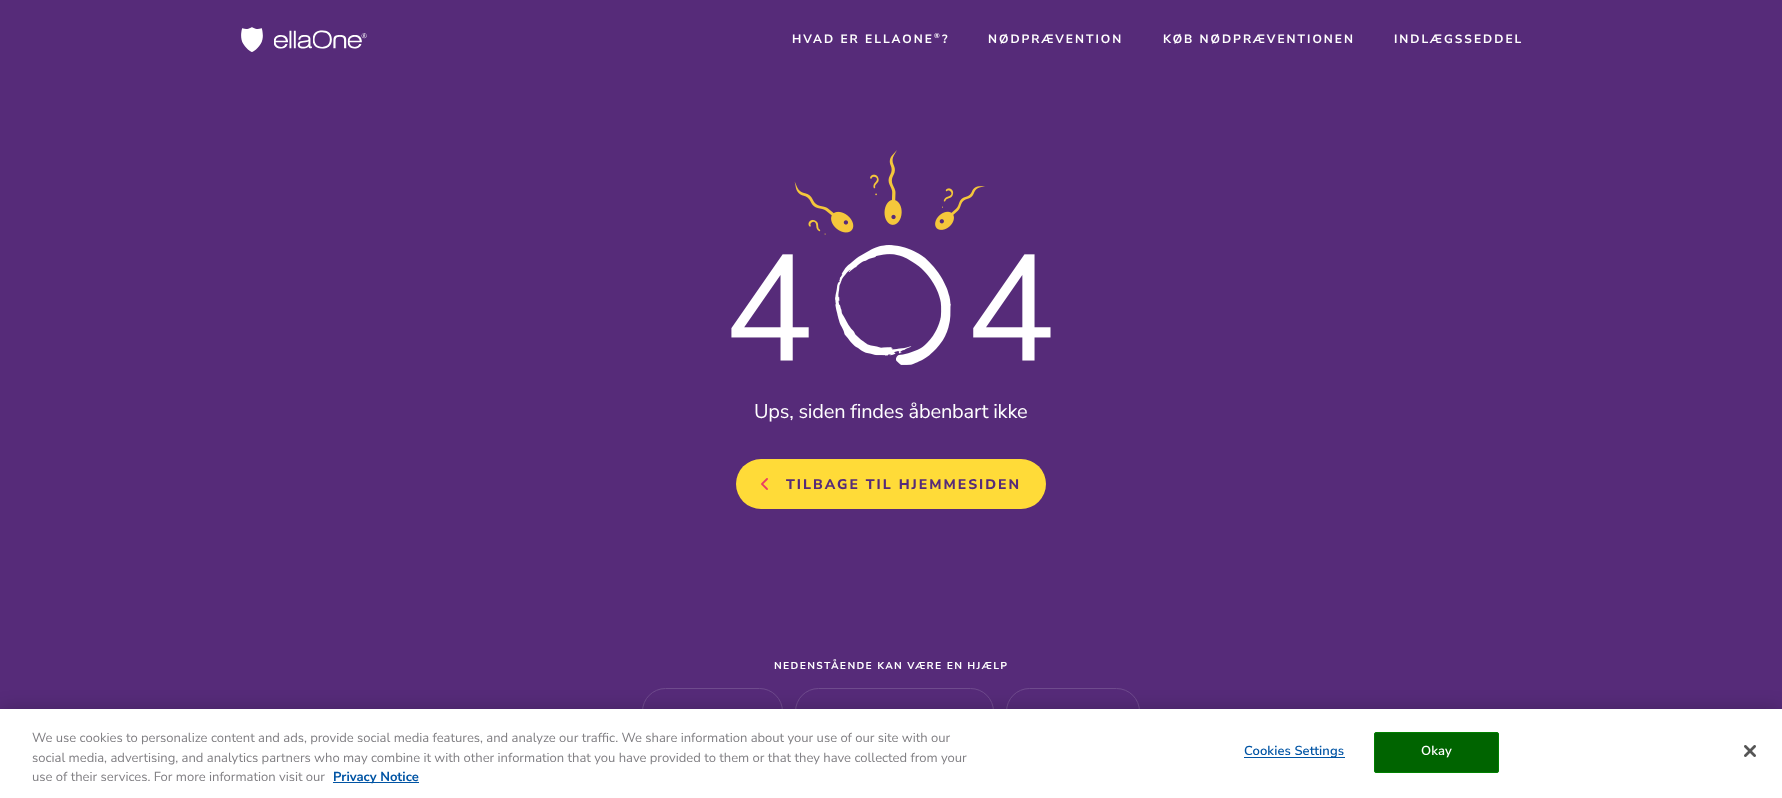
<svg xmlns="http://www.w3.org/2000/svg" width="1782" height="798">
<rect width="100%" height="100%" fill="#562b79"/>
<image x="241" y="27" width="126" height="25" href="media/1.png"/>
<text x="792" y="43" style="font-family:'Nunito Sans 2';font-size:12px;font-weight:bold;letter-spacing:2px;fill:#fff">HVAD ER ELLAONE</text>
<text x="934" y="38" style="font-family:'Nunito Sans 2';font-size:7px;font-weight:bold;letter-spacing:2px;fill:#fff">®</text>
<text x="942" y="43" style="font-family:'Nunito Sans 2';font-size:12px;font-weight:bold;letter-spacing:2px;fill:#fff">?</text>
<text x="988" y="43" style="font-family:'Nunito Sans 2';font-size:12px;font-weight:bold;letter-spacing:2px;fill:#fff">NØDPRÆVENTION</text>
<text x="1163" y="43" style="font-family:'Nunito Sans 2';font-size:12px;font-weight:bold;letter-spacing:2px;fill:#fff">KØB NØDPRÆVENTIONEN</text>
<text x="1394" y="43" style="font-family:'Nunito Sans 2';font-size:12px;font-weight:bold;letter-spacing:2px;fill:#fff">INDLÆGSSEDDEL</text>
<image x="731" y="150" width="320" height="215" href="media/2.png"/>
<text x="754" y="418" style="font-family:Nunito Sans;font-size:20px;letter-spacing:-0.2px;fill:#fff">Ups, siden findes åbenbart ikke</text>
<rect x="736" y="459" width="310" height="50" rx="25" fill="#ffdb38"/>
<image x="761" y="478" width="7" height="12" href="media/3.png"/>
<text x="786" y="489" style="font-family:Nunito Sans;font-size:14px;font-weight:800;letter-spacing:2px;fill:#562b79">TILBAGE TIL HJEMMESIDEN</text>
<text x="774" y="669" style="font-family:Nunito Sans;font-size:10px;font-weight:bold;letter-spacing:1.3px;fill:#fff">NEDENSTÅENDE KAN VÆRE EN HJÆLP</text>
<rect x="642.5" y="688.5" width="140" height="46" rx="23" fill="none" stroke="#6f4b8d"/>
<rect x="795.5" y="688.5" width="198" height="46" rx="23" fill="none" stroke="#6f4b8d"/>
<rect x="1006.5" y="688.5" width="133" height="46" rx="23" fill="none" stroke="#6f4b8d"/>
<rect y="709" width="1782" height="89" fill="#00000033" filter="blur(9px)"/>
<rect y="709" width="1782" height="89" fill="#fff"/>
<text x="32" y="742" style="font-family:Nunito Sans;font-size:13px;fill:#807f83">We use cookies to personalize content and ads, provide social media features, and analyze our traffic. We share information about your use of our site with our</text>
<text x="32" y="762" style="font-family:Nunito Sans;font-size:13px;fill:#807f83">social media, advertising, and analytics partners who may combine it with other information that you have provided to them or that they have collected from your</text>
<text x="32" y="781" style="font-family:Nunito Sans;font-size:13px;fill:#807f83">use of their services. For more information visit our</text>
<rect x="333" y="782" width="86" height="1" fill="#0054a4"/>
<text x="333" y="781" style="font-family:'Nunito Sans 2';font-size:13px;font-weight:bold;fill:#0054a4">Privacy Notice</text>
<rect x="1244" y="757" width="101" height="1" fill="#0054a4"/>
<text x="1244" y="755" style="font-family:Nunito Sans;font-size:13px;font-weight:600;letter-spacing:0.1px;fill:#0054a4">Cookies Settings</text>
<rect x="1374.5" y="732.5" width="124" height="40" rx="1.5" fill="#006400" stroke="#008000"/>
<text x="1421" y="755" style="font-family:Nunito Sans;font-size:13px;font-weight:600;letter-spacing:0.1px;fill:#fff">Okay</text>
<image x="1744" y="745" width="12" height="12" href="media/4.png"/>
</svg>
